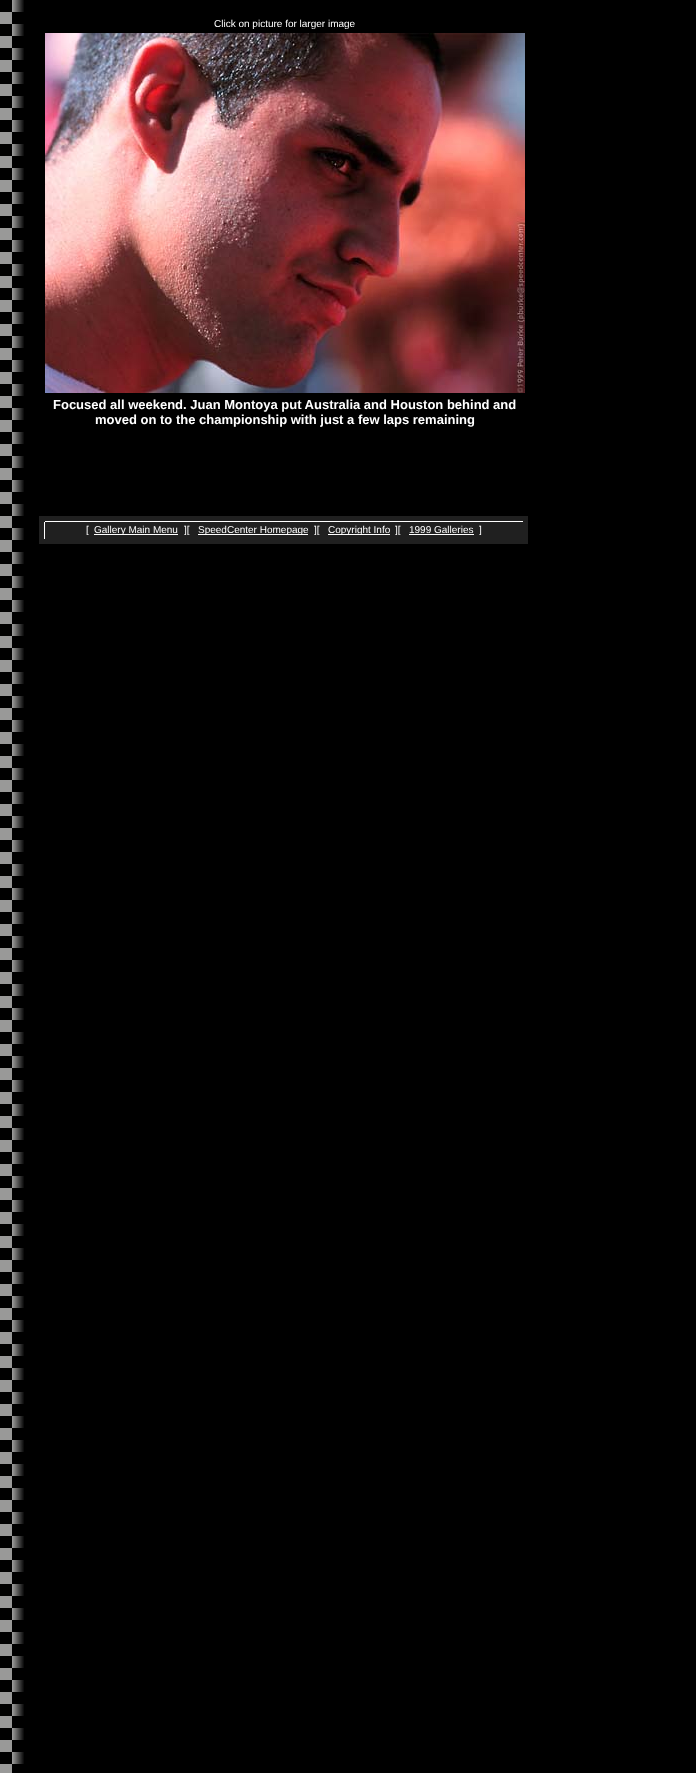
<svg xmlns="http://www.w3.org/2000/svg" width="696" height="1773">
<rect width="100%" height="100%" fill="#000"/>
<image x="0" y="0" width="24" height="1773" href="media/1.png"/>
<text x="214" y="27" style="font-family:Liberation Sans;font-size:10px;fill:#fff">Click on picture for larger image</text>
<image x="45" y="33" width="480" height="360" href="media/2.png"/>
<text x="53" y="409" style="font-family:Liberation Sans;font-size:13px;font-weight:bold;fill:#fff">Focused all weekend. Juan Montoya put Australia and Houston behind and</text>
<text x="95" y="424" style="font-family:Liberation Sans;font-size:13px;font-weight:bold;fill:#fff">moved on to the championship with just a few laps remaining</text>
<rect x="39" y="516" width="489" height="28" fill="#202020"/>
<rect x="45" y="521" width="478" height="1" fill="#fff"/>
<rect x="44" y="522" width="1" height="17" fill="#fff"/>
<text x="86" y="533" style="font-family:Liberation Sans;font-size:10px;fill:#fff">[</text>
<rect x="94" y="534" width="84" height="1" fill="#fff"/>
<text x="94" y="533" style="font-family:Liberation Sans;font-size:10px;fill:#fff">Gallery Main Menu</text>
<text x="184" y="533" style="font-family:Liberation Sans;font-size:10px;fill:#fff">][</text>
<rect x="198" y="534" width="110" height="1" fill="#fff"/>
<text x="198" y="533" style="font-family:Liberation Sans;font-size:10px;fill:#fff">SpeedCenter Homepage</text>
<text x="314" y="533" style="font-family:Liberation Sans;font-size:10px;fill:#fff">][</text>
<rect x="328" y="534" width="62" height="1" fill="#fff"/>
<text x="328" y="533" style="font-family:Liberation Sans;font-size:10px;fill:#fff">Copyright Info</text>
<text x="395" y="533" style="font-family:Liberation Sans;font-size:10px;fill:#fff">][</text>
<text x="409" y="533" style="font-family:Liberation Sans;font-size:10px;fill:#fff">1999 Galleries</text>
<rect x="409" y="534" width="65" height="1" fill="#fff"/>
<text x="479" y="533" style="font-family:Liberation Sans;font-size:10px;fill:#fff">]</text>
</svg>
